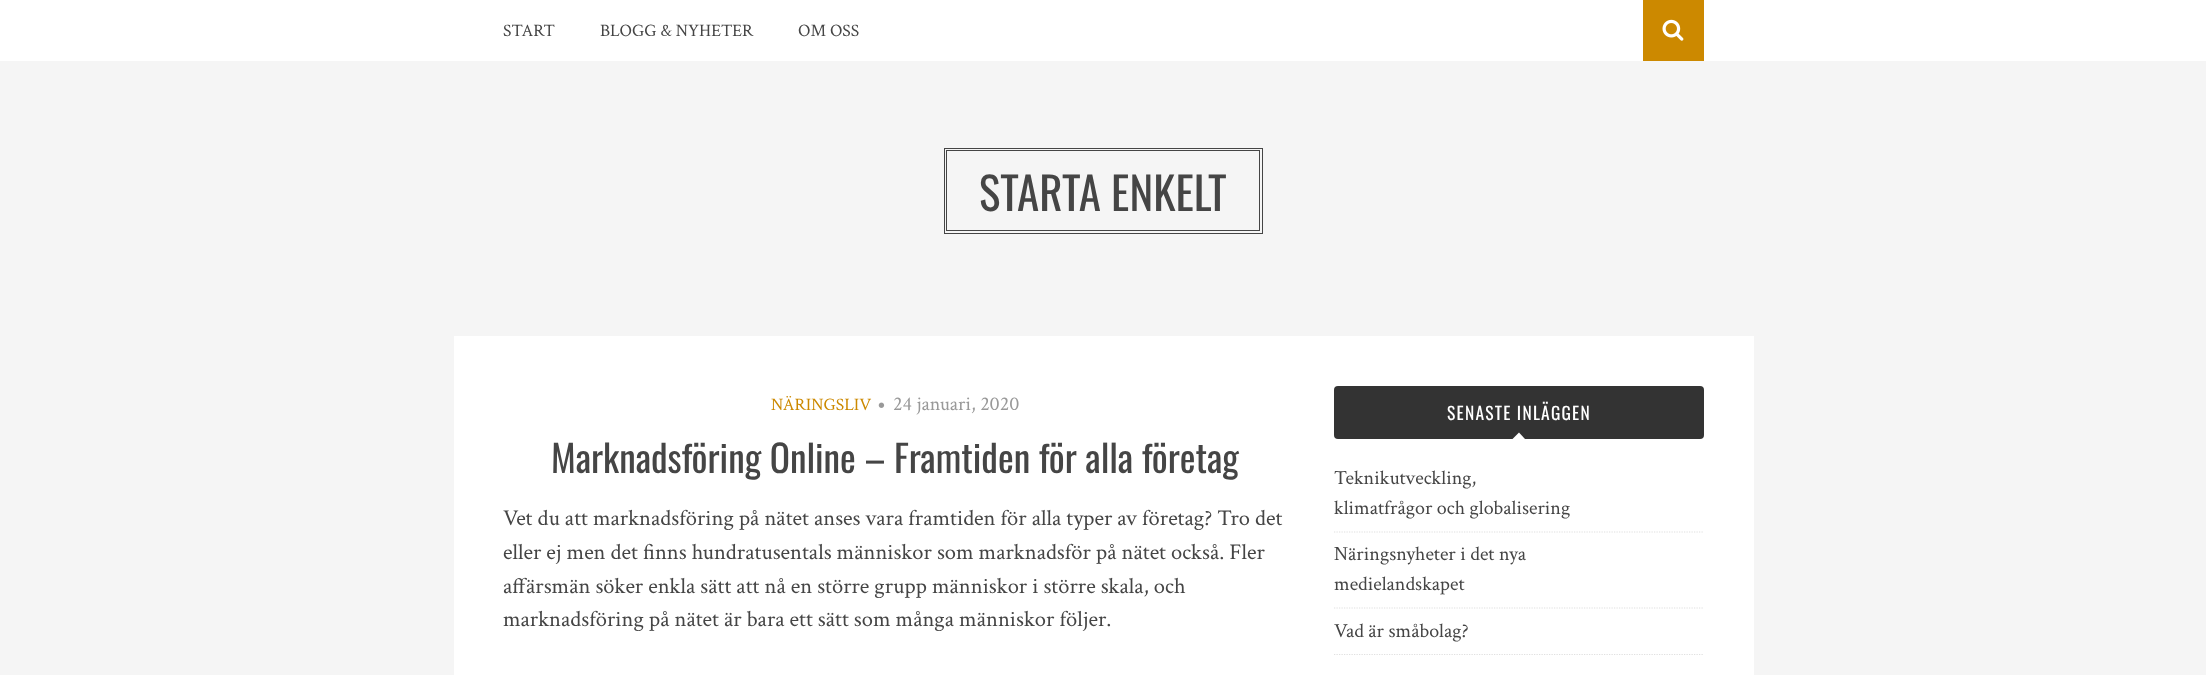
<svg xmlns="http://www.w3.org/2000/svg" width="2206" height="675">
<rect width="100%" height="100%" fill="#f5f5f5"/>
<rect width="2206" height="61" fill="#fff"/>
<text x="503" y="36" style="font-family:Crimson Text;font-size:17.5px;fill:#454545">START</text>
<text x="600" y="36" style="font-family:Crimson Text;font-size:17.5px;fill:#454545">BLOGG &amp; NYHETER</text>
<text x="798" y="36" style="font-family:Crimson Text;font-size:17.5px;fill:#454545">OM OSS</text>
<rect x="1643" width="61" height="61" fill="#cc8900"/>
<image x="1662" y="19" width="22" height="22" href="media/1.png"/>
<rect x="944.5" y="148.5" width="318" height="85" fill="none" stroke="#454545"/>
<rect x="946.5" y="150.5" width="313" height="80" fill="none" stroke="#454545"/>
<text x="979" y="211" style="font-family:Oswald;font-size:45px;fill:#454545">STARTA ENKELT</text>
<rect x="454" y="336" width="1300" height="339" fill="#fff"/>
<text x="771" y="410" style="font-family:Crimson Text;font-size:17.5px;fill:#cc8900">NÄRINGSLIV</text>
<image x="878" y="402" width="7" height="6" href="media/2.png"/>
<text x="893" y="410" style="font-family:Crimson Text;font-size:20px;fill:#999">24 januari, 2020</text>
<text x="551" y="473" style="font-family:Oswald;font-size:37.5px;fill:#454545">Marknadsföring Online – Framtiden för alla företag</text>
<text x="503" y="525" style="font-family:Crimson Text;font-size:22.5px;fill:#454545">Vet du att marknadsföring på nätet anses vara framtiden för alla typer av företag? Tro det</text>
<text x="503" y="559" style="font-family:Crimson Text;font-size:22.5px;fill:#454545">eller ej men det finns hundratusentals människor som marknadsför på nätet också. Fler</text>
<text x="503" y="593" style="font-family:Crimson Text;font-size:22.5px;fill:#454545">affärsmän söker enkla sätt att nå en större grupp människor i större skala, och</text>
<text x="503" y="626" style="font-family:Crimson Text;font-size:22.5px;fill:#454545">marknadsföring på nätet är bara ett sätt som många människor följer.</text>
<rect x="1334" y="386" width="370" height="53" rx="4" fill="#333"/>
<text x="1447" y="420" style="font-family:Oswald;font-size:17.5px;letter-spacing:1.25px;fill:#fff">SENASTE INLÄGGEN</text>
<path d="M1525 439h-12.5l6.5-6.5z" fill="#fff"/>
<path d="M1334 532h370" fill="none" stroke="#e0e0e0" stroke-width="1.2" stroke-dasharray="1.25 1.25"/>
<text x="1334" y="484" style="font-family:Crimson Text;font-size:20px;fill:#454545">Teknikutveckling,</text>
<text x="1334" y="514" style="font-family:Crimson Text;font-size:20px;fill:#454545">klimatfrågor och globalisering</text>
<path d="M1334 608h370" fill="none" stroke="#e0e0e0" stroke-width="1.2" stroke-dasharray="1.25 1.25"/>
<text x="1334" y="560" style="font-family:Crimson Text;font-size:20px;fill:#454545">Näringsnyheter i det nya</text>
<text x="1334" y="590" style="font-family:Crimson Text;font-size:20px;fill:#454545">medielandskapet</text>
<path d="M1334 654.5h370" fill="none" stroke="#e0e0e0" stroke-width="1.2" stroke-dasharray="1.25 1.25"/>
<text x="1334" y="637" style="font-family:Crimson Text;font-size:20px;fill:#454545">Vad är småbolag?</text>
</svg>
